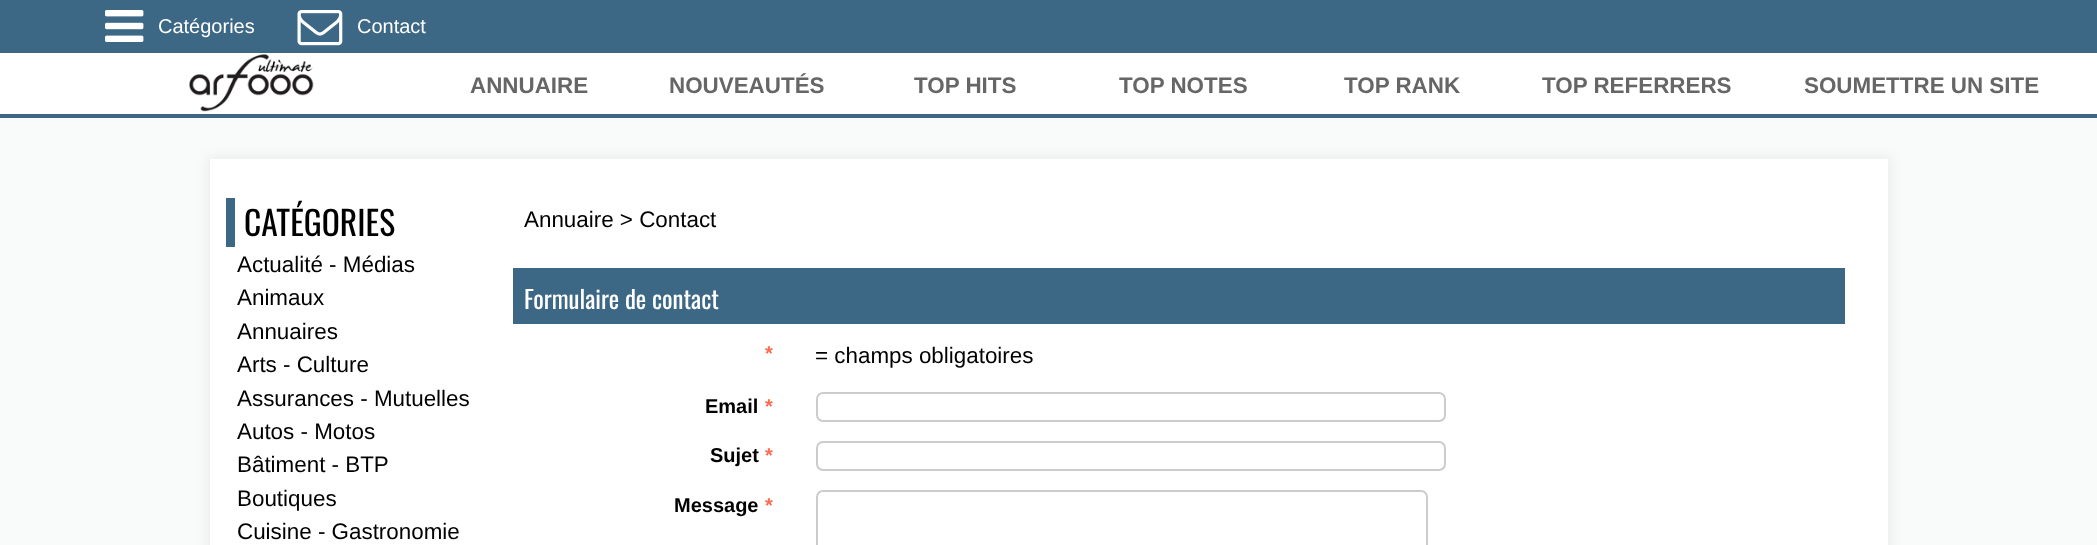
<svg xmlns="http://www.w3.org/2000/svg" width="2097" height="545">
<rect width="100%" height="100%" fill="#f9fbfb"/>
<rect width="2097" height="53" fill="#3c6886"/>
<image x="105" y="10" width="39" height="32" href="media/1.png"/>
<text x="158" y="33" style="font-family:Liberation Sans;font-size:20px;fill:#fff">Catégories</text>
<image x="297" y="10" width="46" height="36" href="media/2.png"/>
<text x="357" y="33" style="font-family:Liberation Sans;font-size:20px;fill:#fff">Contact</text>
<rect y="53" width="2097" height="61" fill="#fff"/>
<rect y="114" width="2097" height="4" fill="#3c6886"/>
<image x="189" y="54" width="125" height="58" href="media/3.png"/>
<text x="470" y="93" style="font-family:Liberation Sans;font-size:22.4px;font-weight:bold;fill:#666">ANNUAIRE</text>
<text x="669" y="93" style="font-family:Liberation Sans;font-size:22.4px;font-weight:bold;fill:#666">NOUVEAUTÉS</text>
<text x="914" y="93" style="font-family:Liberation Sans;font-size:22.4px;font-weight:bold;fill:#666">TOP HITS</text>
<text x="1119" y="93" style="font-family:Liberation Sans;font-size:22.4px;font-weight:bold;fill:#666">TOP NOTES</text>
<text x="1344" y="93" style="font-family:Liberation Sans;font-size:22.4px;font-weight:bold;fill:#666">TOP RANK</text>
<text x="1542" y="93" style="font-family:Liberation Sans;font-size:22.4px;font-weight:bold;fill:#666">TOP REFERRERS</text>
<text x="1804" y="93" style="font-family:Liberation Sans;font-size:22.4px;font-weight:bold;fill:#666">SOUMETTRE UN SITE</text>
<rect x="207" y="156" width="1685" height="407" fill="#0000000d" filter="blur(6px)"/>
<rect x="210" y="159" width="1678" height="386" fill="#fff"/>
<rect x="226" y="198" width="9" height="49" fill="#3c6886"/>
<text x="244" y="236" style="font-family:Oswald;font-size:33.5px;fill:#000">CATÉGORIES</text>
<text x="237" y="272" style="font-family:Liberation Sans;font-size:22.4px;fill:#000">Actualité - Médias</text>
<text x="237" y="305" style="font-family:Liberation Sans;font-size:22.4px;fill:#000">Animaux</text>
<text x="237" y="339" style="font-family:Liberation Sans;font-size:22.4px;fill:#000">Annuaires</text>
<text x="237" y="372" style="font-family:Liberation Sans;font-size:22.4px;fill:#000">Arts - Culture</text>
<text x="237" y="406" style="font-family:Liberation Sans;font-size:22.4px;fill:#000">Assurances - Mutuelles</text>
<text x="237" y="439" style="font-family:Liberation Sans;font-size:22.4px;fill:#000">Autos - Motos</text>
<text x="237" y="472" style="font-family:Liberation Sans;font-size:22.4px;fill:#000">Bâtiment - BTP</text>
<text x="237" y="506" style="font-family:Liberation Sans;font-size:22.4px;fill:#000">Boutiques</text>
<text x="237" y="539" style="font-family:Liberation Sans;font-size:22.4px;fill:#000">Cuisine - Gastronomie</text>
<text x="524" y="227" style="font-family:Liberation Sans;font-size:22.4px;fill:#000">Annuaire &gt; Contact</text>
<rect x="513" y="268" width="1332" height="56" fill="#3c6886"/>
<text x="524" y="309" style="font-family:Oswald;font-size:24.75px;fill:#fff">Formulaire de contact</text>
<text x="765" y="360" style="font-family:Liberation Sans;font-size:20px;font-weight:bold;fill:#ff6a4d">*</text>
<text x="815" y="363" style="font-family:Liberation Sans;font-size:22.4px;fill:#000">= champs obligatoires</text>
<text x="705" y="413" style="font-family:Liberation Sans;font-size:20px;font-weight:bold;fill:#000">Email</text>
<text x="765" y="413" style="font-family:Liberation Sans;font-size:20px;font-weight:bold;fill:#ff6a4d">*</text>
<rect x="817" y="393" width="628" height="28" rx="6" fill="none" stroke="#ccc" stroke-width="2"/>
<text x="710" y="462" style="font-family:Liberation Sans;font-size:20px;font-weight:bold;fill:#000">Sujet</text>
<text x="765" y="462" style="font-family:Liberation Sans;font-size:20px;font-weight:bold;fill:#ff6a4d">*</text>
<rect x="817" y="442" width="628" height="28" rx="6" fill="none" stroke="#ccc" stroke-width="2"/>
<text x="674" y="512" style="font-family:Liberation Sans;font-size:20px;font-weight:bold;fill:#000">Message</text>
<text x="765" y="512" style="font-family:Liberation Sans;font-size:20px;font-weight:bold;fill:#ff6a4d">*</text>
<rect x="817" y="491" width="610" height="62" rx="6" fill="none" stroke="#ccc" stroke-width="2"/>
</svg>
